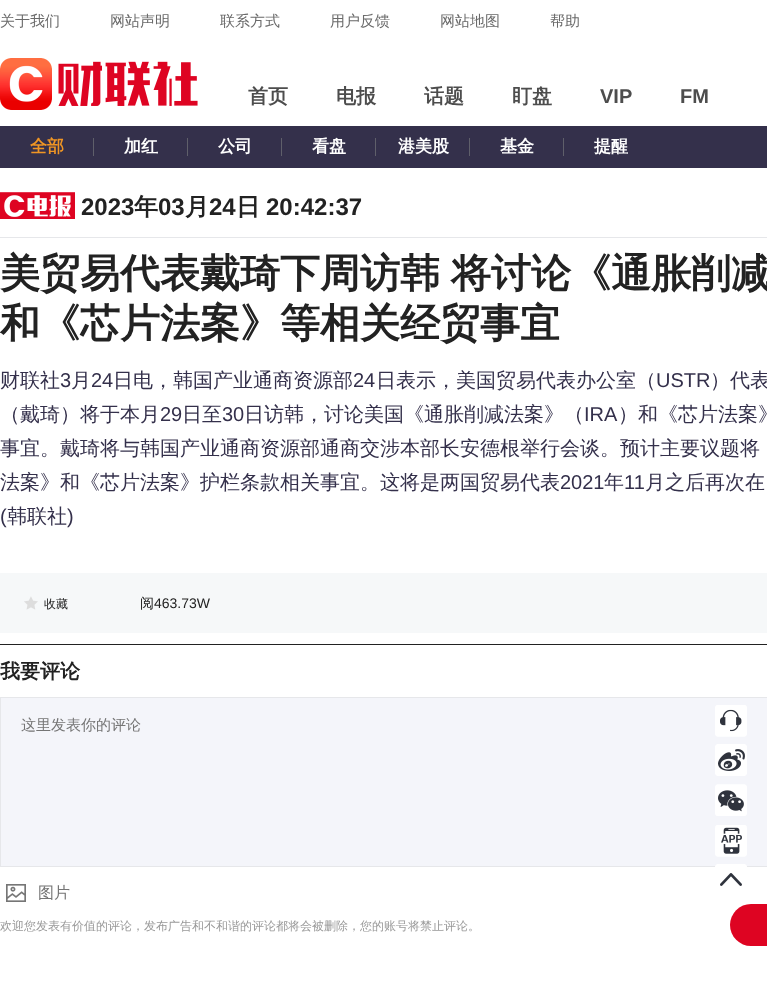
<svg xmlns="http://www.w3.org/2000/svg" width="767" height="1004">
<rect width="100%" height="100%" fill="#fff"/>
<text x="0" y="26" style="font-family:WenQuanYi Zen Hei;font-size:15px;font-weight:500;fill:#6a6a6a">关于我们</text>
<text x="110" y="26" style="font-family:WenQuanYi Zen Hei;font-size:15px;font-weight:500;fill:#6a6a6a">网站声明</text>
<text x="220" y="26" style="font-family:WenQuanYi Zen Hei;font-size:15px;font-weight:500;fill:#6a6a6a">联系方式</text>
<text x="330" y="26" style="font-family:WenQuanYi Zen Hei;font-size:15px;font-weight:500;fill:#6a6a6a">用户反馈</text>
<text x="440" y="26" style="font-family:WenQuanYi Zen Hei;font-size:15px;font-weight:500;fill:#6a6a6a">网站地图</text>
<text x="550" y="26" style="font-family:WenQuanYi Zen Hei;font-size:15px;font-weight:500;fill:#6a6a6a">帮助</text>
<image x="0" y="58" width="198" height="52" href="media/1.png"/>
<text x="248" y="103" style="font-family:WenQuanYi Zen Hei;font-size:20px;font-weight:bold;fill:#4d4d4d">首页</text>
<text x="336" y="103" style="font-family:WenQuanYi Zen Hei;font-size:20px;font-weight:bold;fill:#4d4d4d">电报</text>
<text x="424" y="103" style="font-family:WenQuanYi Zen Hei;font-size:20px;font-weight:bold;fill:#4d4d4d">话题</text>
<text x="512" y="103" style="font-family:WenQuanYi Zen Hei;font-size:20px;font-weight:bold;fill:#4d4d4d">盯盘</text>
<text x="600" y="103" style="font-family:Liberation Sans;font-size:20px;font-weight:bold;fill:#4d4d4d">VIP</text>
<text x="680" y="103" style="font-family:Liberation Sans;font-size:20px;font-weight:bold;fill:#4d4d4d">FM</text>
<rect y="126" width="767" height="42" fill="#34304b"/>
<text x="30" y="152" style="font-family:WenQuanYi Zen Hei;font-size:17px;font-weight:bold;fill:#ef9524">全部</text>
<rect x="93" y="138" width="1" height="18" fill="#5f5f6a"/>
<text x="124" y="152" style="font-family:WenQuanYi Zen Hei;font-size:17px;font-weight:bold;fill:#fff">加红</text>
<rect x="187" y="138" width="1" height="18" fill="#5f5f6a"/>
<text x="218" y="152" style="font-family:WenQuanYi Zen Hei;font-size:17px;font-weight:bold;fill:#fff">公司</text>
<rect x="281" y="138" width="1" height="18" fill="#5f5f6a"/>
<text x="312" y="152" style="font-family:WenQuanYi Zen Hei;font-size:17px;font-weight:bold;fill:#fff">看盘</text>
<rect x="375" y="138" width="1" height="18" fill="#5f5f6a"/>
<text x="398" y="152" style="font-family:WenQuanYi Zen Hei;font-size:17px;font-weight:bold;fill:#fff">港美股</text>
<rect x="469" y="138" width="1" height="18" fill="#5f5f6a"/>
<text x="500" y="152" style="font-family:WenQuanYi Zen Hei;font-size:17px;font-weight:bold;fill:#fff">基金</text>
<rect x="563" y="138" width="1" height="18" fill="#5f5f6a"/>
<text x="594" y="152" style="font-family:WenQuanYi Zen Hei;font-size:17px;font-weight:bold;fill:#fff">提醒</text>
<rect y="237" width="767" height="1" fill="#e6e7ea"/>
<image x="0" y="192" width="75" height="27" href="media/2.png"/>
<text x="81" y="215" style="font-family:Liberation Sans;font-size:24px;font-weight:bold;fill:#222">2023</text>
<text x="134" y="215" style="font-family:WenQuanYi Zen Hei;font-size:24px;font-weight:bold;fill:#222">年</text>
<text x="158" y="215" style="font-family:Liberation Sans;font-size:24px;font-weight:bold;fill:#222">03</text>
<text x="185" y="215" style="font-family:WenQuanYi Zen Hei;font-size:24px;font-weight:bold;fill:#222">月</text>
<text x="209" y="215" style="font-family:Liberation Sans;font-size:24px;font-weight:bold;fill:#222">24</text>
<text x="236" y="215" style="font-family:WenQuanYi Zen Hei;font-size:24px;font-weight:bold;fill:#222">日</text>
<text x="266" y="215" style="font-family:Liberation Sans;font-size:24px;font-weight:bold;fill:#222">20:42:37</text>
<text x="0" y="287" word-spacing="-1" style="font-family:WenQuanYi Zen Hei;font-size:40px;font-weight:bold;fill:#222">美贸易代表戴琦下周访韩 将讨论《通胀削减</text>
<text x="0" y="337" style="font-family:WenQuanYi Zen Hei;font-size:40px;font-weight:bold;fill:#222">和《芯片法案》等相关经贸事宜</text>
<text x="0" y="387" style="font-family:WenQuanYi Zen Hei;font-size:20px;font-weight:500;fill:#34304b">财联社</text>
<text x="60" y="387" style="font-family:Liberation Sans;font-size:20px;fill:#34304b">3</text>
<text x="71" y="387" style="font-family:WenQuanYi Zen Hei;font-size:20px;font-weight:500;fill:#34304b">月</text>
<text x="91" y="387" style="font-family:Liberation Sans;font-size:20px;fill:#34304b">24</text>
<text x="113" y="387" style="font-family:WenQuanYi Zen Hei;font-size:20px;font-weight:500;fill:#34304b">日电，韩国产业通商资源部</text>
<text x="353" y="387" style="font-family:Liberation Sans;font-size:20px;fill:#34304b">24</text>
<text x="376" y="387" style="font-family:WenQuanYi Zen Hei;font-size:20px;font-weight:500;fill:#34304b">日表示，美国贸易代表办公室（</text>
<text x="656" y="387" style="font-family:Liberation Sans;font-size:20px;fill:#34304b">USTR</text>
<text x="710" y="387" style="font-family:WenQuanYi Zen Hei;font-size:20px;font-weight:500;fill:#34304b">）代表</text>
<text x="0" y="421" style="font-family:WenQuanYi Zen Hei;font-size:20px;font-weight:500;fill:#34304b">（戴琦）将于本月</text>
<text x="160" y="421" style="font-family:Liberation Sans;font-size:20px;fill:#34304b">29</text>
<text x="182" y="421" style="font-family:WenQuanYi Zen Hei;font-size:20px;font-weight:500;fill:#34304b">日至</text>
<text x="222" y="421" style="font-family:Liberation Sans;font-size:20px;fill:#34304b">30</text>
<text x="244" y="421" style="font-family:WenQuanYi Zen Hei;font-size:20px;font-weight:500;fill:#34304b">日访韩，讨论美国《通胀削减法案》（</text>
<text x="584" y="421" style="font-family:Liberation Sans;font-size:20px;fill:#34304b">IRA</text>
<text x="618" y="421" style="font-family:WenQuanYi Zen Hei;font-size:20px;font-weight:500;fill:#34304b">）和《芯片法案》</text>
<text x="0" y="455" style="font-family:WenQuanYi Zen Hei;font-size:20px;font-weight:500;fill:#34304b">事宜。戴琦将与韩国产业通商资源部通商交涉本部长安德根举行会谈。预计主要议题将</text>
<text x="0" y="489" style="font-family:WenQuanYi Zen Hei;font-size:20px;font-weight:500;fill:#34304b">法案》和《芯片法案》护栏条款相关事宜。这将是两国贸易代表</text>
<text x="560" y="489" style="font-family:Liberation Sans;font-size:20px;fill:#34304b">2021</text>
<text x="604" y="489" style="font-family:WenQuanYi Zen Hei;font-size:20px;font-weight:500;fill:#34304b">年</text>
<text x="624" y="489" style="font-family:Liberation Sans;font-size:20px;fill:#34304b">11</text>
<text x="645" y="489" style="font-family:WenQuanYi Zen Hei;font-size:20px;font-weight:500;fill:#34304b">月之后再次在</text>
<text x="0" y="523" style="font-family:Liberation Sans;font-size:20px;fill:#34304b">(</text>
<text x="7" y="523" style="font-family:WenQuanYi Zen Hei;font-size:20px;font-weight:500;fill:#34304b">韩联社</text>
<text x="67" y="523" style="font-family:Liberation Sans;font-size:20px;fill:#34304b">)</text>
<rect y="573" width="767" height="60" fill="#f6f8f9"/>
<image x="24" y="596" width="14" height="14" href="media/3.png"/>
<text x="44" y="608" style="font-family:WenQuanYi Zen Hei;font-size:12px;font-weight:500;fill:#222">收藏</text>
<text x="140" y="608" style="font-family:WenQuanYi Zen Hei;font-size:14px;font-weight:500;fill:#222">阅</text>
<text x="154" y="608" style="font-family:Liberation Sans;font-size:14px;fill:#222">463.73W</text>
<rect y="644" width="767" height="1" fill="#222"/>
<text x="0" y="678" style="font-family:WenQuanYi Zen Hei;font-size:20px;font-weight:bold;fill:#222">我要评论</text>
<rect x="0.5" y="697.5" width="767" height="169" fill="#f4f5fa" stroke="#e6e7ea"/>
<text x="21" y="730" style="font-family:WenQuanYi Zen Hei;font-size:15px;font-weight:500;fill:#757575">这里发表你的评论</text>
<image x="6" y="884" width="20" height="18" href="media/4.png"/>
<text x="38" y="898" style="font-family:WenQuanYi Zen Hei;font-size:16px;font-weight:500;fill:#757575">图片</text>
<text x="0" y="930" style="font-family:WenQuanYi Zen Hei;font-size:12px;font-weight:500;fill:#999">欢迎您发表有价值的评论，发布广告和不和谐的评论都将会被删除，您的账号将禁止评论。</text>
<rect x="730" y="904" width="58" height="42" rx="21" fill="#de0422"/>
<image x="715" y="705" width="32" height="32" href="media/5.png"/>
<image x="715" y="744" width="32" height="32" href="media/6.png"/>
<image x="715" y="784" width="32" height="32" href="media/7.png"/>
<image x="715" y="825" width="32" height="32" href="media/8.png"/>
<image x="715" y="864" width="32" height="22" href="media/9.png"/>
</svg>
